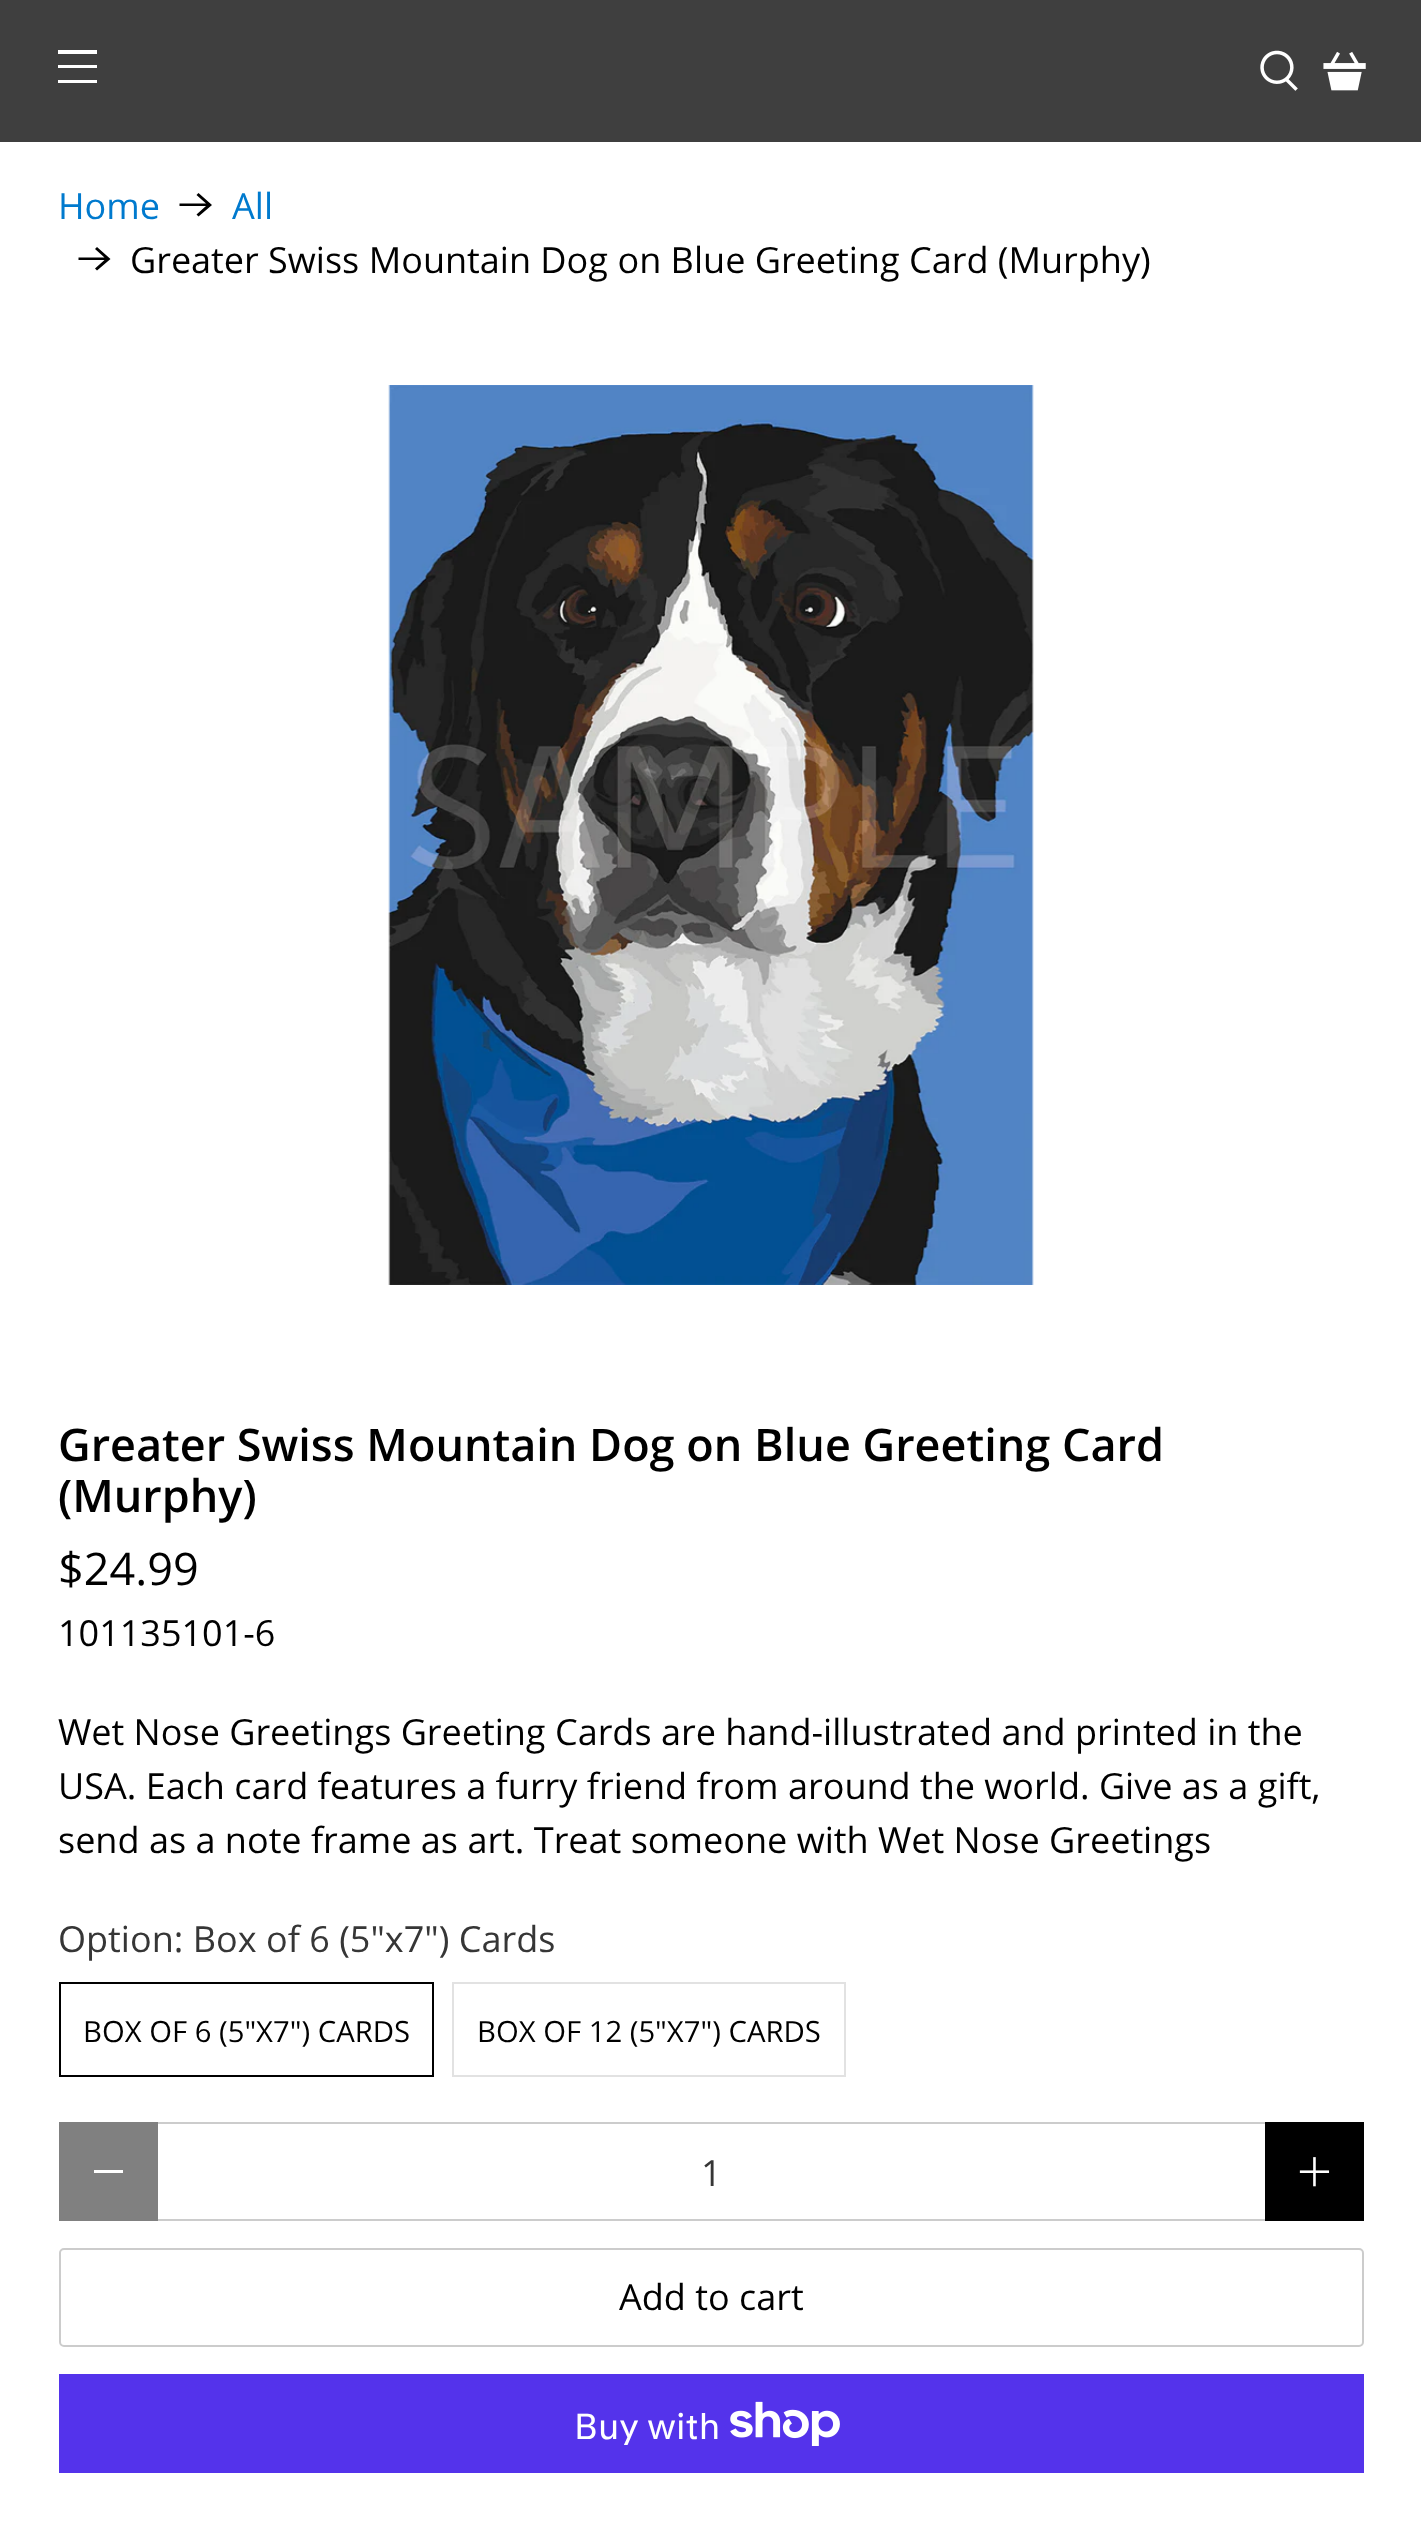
<svg xmlns="http://www.w3.org/2000/svg" width="1421" height="2525">
<rect width="100%" height="100%" fill="#fff"/>
<rect width="1421" height="142" fill="#3f3f3f"/>
<rect x="58" y="50" width="39" height="4" fill="#fff"/>
<rect x="58" y="65" width="39" height="3" fill="#fff"/>
<rect x="58" y="80" width="39" height="3" fill="#fff"/>
<image x="1260" y="50" width="38" height="41" href="media/1.png"/>
<image x="1323" y="51" width="43" height="40" href="media/2.png"/>
<text x="58" y="219" style="font-family:Open Sans;font-size:36px;fill:#007ace">Home</text>
<path d="M198.5 193l-2 2l9.5 8.5h-26.5v2.5h26.5l-9.5 8.5l2 2l13.5-11.5z" fill="#000"/>
<text x="232" y="219" style="font-family:Open Sans;font-size:36px;fill:#007ace">All</text>
<path d="M97 247l-2 2l9.5 8.5h-26v2.5h26l-9.5 8.5l2 2l13.5-11.5z" fill="#000"/>
<text x="130" y="273" style="font-family:Open Sans;font-size:36px;fill:#000">Greater Swiss Mountain Dog on Blue Greeting Card (Murphy)</text>
<image x="388" y="385" width="646" height="900" href="media/3.png"/>
<text x="58" y="1461" style="font-family:Open Sans;font-size:45px;font-weight:600;fill:#000">Greater Swiss Mountain Dog on Blue Greeting Card</text>
<text x="58" y="1512" style="font-family:Open Sans;font-size:45px;font-weight:600;fill:#000">(Murphy)</text>
<text x="58" y="1585" style="font-family:Open Sans;font-size:45px;fill:#000">$24.99</text>
<text x="58" y="1646" style="font-family:Open Sans;font-size:36px;fill:#000">101135101-6</text>
<text x="58" y="1745" style="font-family:Open Sans;font-size:36px;fill:#000">Wet Nose Greetings Greeting Cards are hand-illustrated and printed in the</text>
<text x="58" y="1799" style="font-family:Open Sans;font-size:36px;fill:#000">USA. Each card features a furry friend from around the world. Give as a gift,</text>
<text x="58" y="1853" style="font-family:Open Sans;font-size:36px;fill:#000">send as a note frame as art. Treat someone with Wet Nose Greetings</text>
<text x="58" y="1952" style="font-family:Open Sans;font-size:36px;fill:#363636">Option: Box of 6 (5"x7") Cards</text>
<rect x="60" y="1983" width="373" height="93" fill="none" stroke="#000" stroke-width="2"/>
<text x="83" y="2042" style="font-family:Open Sans;font-size:29.25px;fill:#000">BOX OF 6 (5"X7") CARDS</text>
<rect x="453" y="1983" width="392" height="93" fill="none" stroke="#e2e2e2" stroke-width="2"/>
<text x="477" y="2042" style="font-family:Open Sans;font-size:29.25px;fill:#000">BOX OF 12 (5"X7") CARDS</text>
<rect x="59" y="2122" width="99" height="99" fill="#808080"/>
<rect x="94" y="2170" width="29" height="3" fill="#fff"/>
<rect x="158" y="2122" width="1107" height="2" fill="#ccc"/>
<rect x="158" y="2219" width="1107" height="2" fill="#ccc"/>
<text x="701" y="2186" style="font-family:Open Sans;font-size:36px;fill:#363636">1</text>
<rect x="1265" y="2122" width="99" height="99" fill="#000"/>
<image x="1299" y="2157" width="31" height="30" href="media/4.png"/>
<rect x="60" y="2249" width="1303" height="97" rx="4" fill="none" stroke="#ccc" stroke-width="2"/>
<text x="619" y="2310" style="font-family:Open Sans;font-size:36px;fill:#000">Add to cart</text>
<rect x="59" y="2374" width="1305" height="99" fill="#5433eb"/>
<text x="574" y="2439" style="font-family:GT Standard;font-size:36px;fill:#fff">Buy with</text>
<image x="730" y="2401" width="110" height="45" href="media/5.png"/>
</svg>
